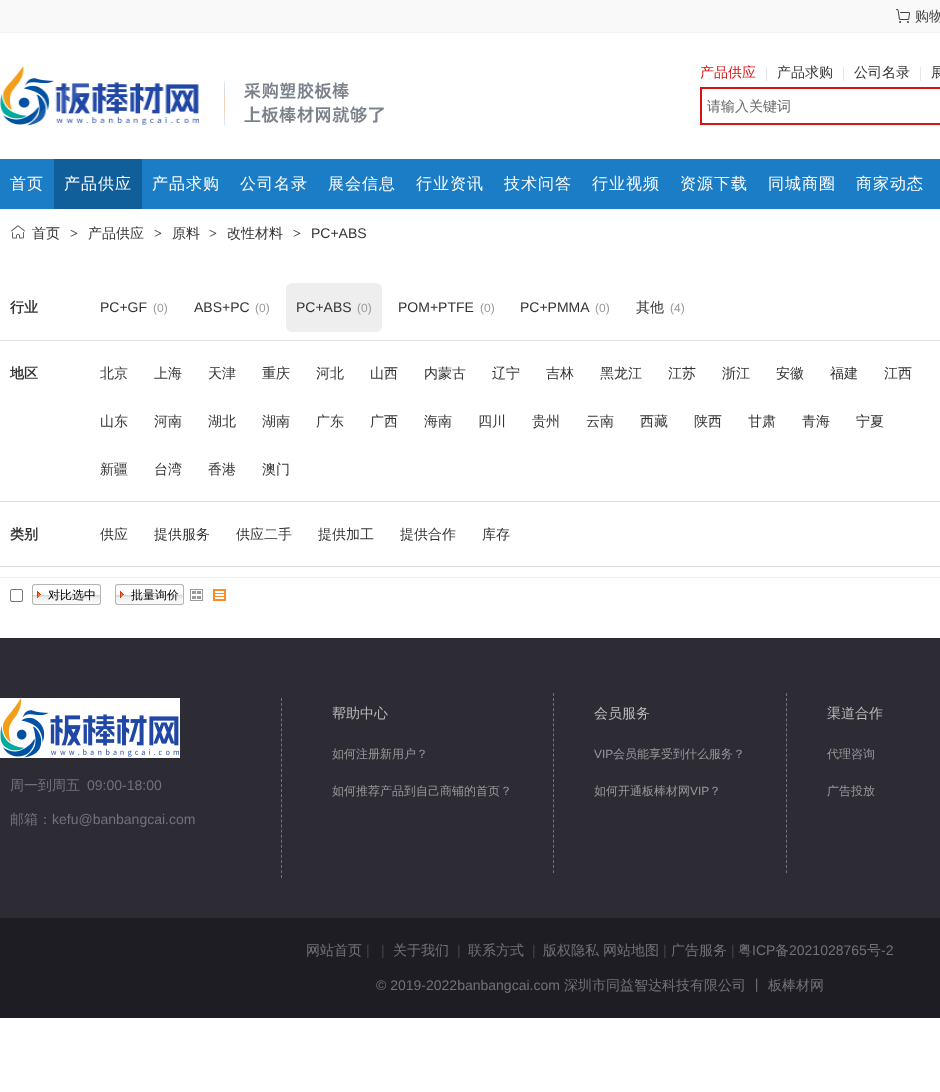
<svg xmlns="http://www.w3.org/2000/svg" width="940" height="1092">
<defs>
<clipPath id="clip1"><rect y="56" width="200" height="80"/></clipPath>
</defs>
<rect width="100%" height="100%" fill="#fff"/>
<rect width="940" height="32" fill="#f9f9f9"/>
<rect y="32" width="940" height="1" fill="#f2f2f2"/>
<image x="896" y="9" width="14" height="14" href="media/1.png"/>
<text x="915" y="21" style="font-family:WenQuanYi Zen Hei;font-size:14px;font-weight:500;fill:#444">购物</text>
<image x="0" y="66" width="199" height="60" href="media/2.png"/>
<g clip-path="url(#clip1)">
<path d="M24 129l141-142l11 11l-141 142z" fill="#ffffff1a"/>
</g>
<image x="224" y="81" width="1" height="45" href="media/3.png"/>
<image x="244" y="82" width="140" height="41" href="media/4.png"/>
<text x="700" y="77" style="font-family:WenQuanYi Zen Hei;font-size:14px;font-weight:500;fill:#d91212">产品供应</text>
<rect x="766" y="67" width="1" height="14" fill="#e6e6e6"/>
<text x="777" y="77" style="font-family:WenQuanYi Zen Hei;font-size:14px;font-weight:500;fill:#333">产品求购</text>
<rect x="843" y="67" width="1" height="14" fill="#e6e6e6"/>
<text x="854" y="77" style="font-family:WenQuanYi Zen Hei;font-size:14px;font-weight:500;fill:#333">公司名录</text>
<rect x="920" y="67" width="1" height="14" fill="#e6e6e6"/>
<text x="931" y="77" style="font-family:WenQuanYi Zen Hei;font-size:14px;font-weight:500;fill:#333">展</text>
<rect x="700" y="87" width="240" height="2" fill="#d91212"/>
<rect x="700" y="123" width="240" height="2" fill="#d91212"/>
<rect x="700" y="87" width="2" height="38" fill="#d91212"/>
<text x="707" y="111" style="font-family:WenQuanYi Zen Hei;font-size:14px;font-weight:500;fill:#666">请输入关键词</text>
<rect y="159" width="940" height="50" fill="#1c7dc7"/>
<text x="10" y="189" style="font-family:WenQuanYi Zen Hei;font-size:16px;font-weight:500;letter-spacing:1px;fill:#fff">首页</text>
<rect x="54" y="159" width="88" height="50" fill="#105e9a"/>
<text x="64" y="189" style="font-family:WenQuanYi Zen Hei;font-size:16px;font-weight:500;letter-spacing:1px;fill:#fff">产品供应</text>
<text x="152" y="189" style="font-family:WenQuanYi Zen Hei;font-size:16px;font-weight:500;letter-spacing:1px;fill:#fff">产品求购</text>
<text x="240" y="189" style="font-family:WenQuanYi Zen Hei;font-size:16px;font-weight:500;letter-spacing:1px;fill:#fff">公司名录</text>
<text x="328" y="189" style="font-family:WenQuanYi Zen Hei;font-size:16px;font-weight:500;letter-spacing:1px;fill:#fff">展会信息</text>
<text x="416" y="189" style="font-family:WenQuanYi Zen Hei;font-size:16px;font-weight:500;letter-spacing:1px;fill:#fff">行业资讯</text>
<text x="504" y="189" style="font-family:WenQuanYi Zen Hei;font-size:16px;font-weight:500;letter-spacing:1px;fill:#fff">技术问答</text>
<text x="592" y="189" style="font-family:WenQuanYi Zen Hei;font-size:16px;font-weight:500;letter-spacing:1px;fill:#fff">行业视频</text>
<text x="680" y="189" style="font-family:WenQuanYi Zen Hei;font-size:16px;font-weight:500;letter-spacing:1px;fill:#fff">资源下载</text>
<text x="768" y="189" style="font-family:WenQuanYi Zen Hei;font-size:16px;font-weight:500;letter-spacing:1px;fill:#fff">同城商圈</text>
<text x="856" y="189" style="font-family:WenQuanYi Zen Hei;font-size:16px;font-weight:500;letter-spacing:1px;fill:#fff">商家动态</text>
<image x="11" y="225" width="14" height="14" href="media/5.png"/>
<text x="32" y="238" style="font-family:WenQuanYi Zen Hei;font-size:14px;font-weight:500;fill:#333">首页</text>
<text x="70" y="238" style="font-family:Liberation Serif;font-size:14px;font-weight:bold;fill:#444">&gt;</text>
<text x="88" y="238" style="font-family:WenQuanYi Zen Hei;font-size:14px;font-weight:500;fill:#333">产品供应</text>
<text x="154" y="238" style="font-family:Liberation Serif;font-size:14px;font-weight:bold;fill:#444">&gt;</text>
<text x="172" y="238" style="font-family:WenQuanYi Zen Hei;font-size:14px;font-weight:500;fill:#333">原料</text>
<text x="209" y="238" style="font-family:Liberation Serif;font-size:14px;font-weight:bold;fill:#444">&gt;</text>
<text x="227" y="238" style="font-family:WenQuanYi Zen Hei;font-size:14px;font-weight:500;fill:#333">改性材料</text>
<text x="293" y="238" style="font-family:Liberation Serif;font-size:14px;font-weight:bold;fill:#444">&gt;</text>
<text x="311" y="238" style="font-family:Liberation Sans;font-size:14px;fill:#333">PC+ABS</text>
<rect y="577" width="940" height="1" fill="#f2f2f2"/>
<rect y="340" width="940" height="1" fill="#ddd"/>
<text x="10" y="312" style="font-family:WenQuanYi Zen Hei;font-size:14px;font-weight:bold;fill:#333">行业</text>
<text x="100" y="312" style="font-family:Liberation Sans;font-size:14px;fill:#333">PC+GF</text>
<text x="153" y="312" style="font-family:Liberation Sans;font-size:12px;fill:#999">(0)</text>
<text x="194" y="312" style="font-family:Liberation Sans;font-size:14px;fill:#333">ABS+PC</text>
<text x="255" y="312" style="font-family:Liberation Sans;font-size:12px;fill:#999">(0)</text>
<rect x="286" y="283" width="96" height="49" rx="6" fill="#eee"/>
<text x="296" y="312" style="font-family:Liberation Sans;font-size:14px;fill:#333">PC+ABS</text>
<text x="357" y="312" style="font-family:Liberation Sans;font-size:12px;fill:#999">(0)</text>
<text x="398" y="312" style="font-family:Liberation Sans;font-size:14px;fill:#333">POM+PTFE</text>
<text x="480" y="312" style="font-family:Liberation Sans;font-size:12px;fill:#999">(0)</text>
<text x="520" y="312" style="font-family:Liberation Sans;font-size:14px;fill:#333">PC+PMMA</text>
<text x="595" y="312" style="font-family:Liberation Sans;font-size:12px;fill:#999">(0)</text>
<text x="636" y="312" style="font-family:WenQuanYi Zen Hei;font-size:14px;font-weight:500;fill:#333">其他</text>
<text x="670" y="312" style="font-family:Liberation Sans;font-size:12px;fill:#999">(4)</text>
<rect y="501" width="940" height="1" fill="#ddd"/>
<text x="10" y="378" style="font-family:WenQuanYi Zen Hei;font-size:14px;font-weight:bold;fill:#333">地区</text>
<text x="100" y="378" style="font-family:WenQuanYi Zen Hei;font-size:14px;font-weight:500;fill:#333">北京</text>
<text x="154" y="378" style="font-family:WenQuanYi Zen Hei;font-size:14px;font-weight:500;fill:#333">上海</text>
<text x="208" y="378" style="font-family:WenQuanYi Zen Hei;font-size:14px;font-weight:500;fill:#333">天津</text>
<text x="262" y="378" style="font-family:WenQuanYi Zen Hei;font-size:14px;font-weight:500;fill:#333">重庆</text>
<text x="316" y="378" style="font-family:WenQuanYi Zen Hei;font-size:14px;font-weight:500;fill:#333">河北</text>
<text x="370" y="378" style="font-family:WenQuanYi Zen Hei;font-size:14px;font-weight:500;fill:#333">山西</text>
<text x="424" y="378" style="font-family:WenQuanYi Zen Hei;font-size:14px;font-weight:500;fill:#333">内蒙古</text>
<text x="492" y="378" style="font-family:WenQuanYi Zen Hei;font-size:14px;font-weight:500;fill:#333">辽宁</text>
<text x="546" y="378" style="font-family:WenQuanYi Zen Hei;font-size:14px;font-weight:500;fill:#333">吉林</text>
<text x="600" y="378" style="font-family:WenQuanYi Zen Hei;font-size:14px;font-weight:500;fill:#333">黑龙江</text>
<text x="668" y="378" style="font-family:WenQuanYi Zen Hei;font-size:14px;font-weight:500;fill:#333">江苏</text>
<text x="722" y="378" style="font-family:WenQuanYi Zen Hei;font-size:14px;font-weight:500;fill:#333">浙江</text>
<text x="776" y="378" style="font-family:WenQuanYi Zen Hei;font-size:14px;font-weight:500;fill:#333">安徽</text>
<text x="830" y="378" style="font-family:WenQuanYi Zen Hei;font-size:14px;font-weight:500;fill:#333">福建</text>
<text x="884" y="378" style="font-family:WenQuanYi Zen Hei;font-size:14px;font-weight:500;fill:#333">江西</text>
<text x="100" y="426" style="font-family:WenQuanYi Zen Hei;font-size:14px;font-weight:500;fill:#333">山东</text>
<text x="154" y="426" style="font-family:WenQuanYi Zen Hei;font-size:14px;font-weight:500;fill:#333">河南</text>
<text x="208" y="426" style="font-family:WenQuanYi Zen Hei;font-size:14px;font-weight:500;fill:#333">湖北</text>
<text x="262" y="426" style="font-family:WenQuanYi Zen Hei;font-size:14px;font-weight:500;fill:#333">湖南</text>
<text x="316" y="426" style="font-family:WenQuanYi Zen Hei;font-size:14px;font-weight:500;fill:#333">广东</text>
<text x="370" y="426" style="font-family:WenQuanYi Zen Hei;font-size:14px;font-weight:500;fill:#333">广西</text>
<text x="424" y="426" style="font-family:WenQuanYi Zen Hei;font-size:14px;font-weight:500;fill:#333">海南</text>
<text x="478" y="426" style="font-family:WenQuanYi Zen Hei;font-size:14px;font-weight:500;fill:#333">四川</text>
<text x="532" y="426" style="font-family:WenQuanYi Zen Hei;font-size:14px;font-weight:500;fill:#333">贵州</text>
<text x="586" y="426" style="font-family:WenQuanYi Zen Hei;font-size:14px;font-weight:500;fill:#333">云南</text>
<text x="640" y="426" style="font-family:WenQuanYi Zen Hei;font-size:14px;font-weight:500;fill:#333">西藏</text>
<text x="694" y="426" style="font-family:WenQuanYi Zen Hei;font-size:14px;font-weight:500;fill:#333">陕西</text>
<text x="748" y="426" style="font-family:WenQuanYi Zen Hei;font-size:14px;font-weight:500;fill:#333">甘肃</text>
<text x="802" y="426" style="font-family:WenQuanYi Zen Hei;font-size:14px;font-weight:500;fill:#333">青海</text>
<text x="856" y="426" style="font-family:WenQuanYi Zen Hei;font-size:14px;font-weight:500;fill:#333">宁夏</text>
<text x="100" y="474" style="font-family:WenQuanYi Zen Hei;font-size:14px;font-weight:500;fill:#333">新疆</text>
<text x="154" y="474" style="font-family:WenQuanYi Zen Hei;font-size:14px;font-weight:500;fill:#333">台湾</text>
<text x="208" y="474" style="font-family:WenQuanYi Zen Hei;font-size:14px;font-weight:500;fill:#333">香港</text>
<text x="262" y="474" style="font-family:WenQuanYi Zen Hei;font-size:14px;font-weight:500;fill:#333">澳门</text>
<rect y="566" width="940" height="1" fill="#ddd"/>
<text x="10" y="539" style="font-family:WenQuanYi Zen Hei;font-size:14px;font-weight:bold;fill:#333">类别</text>
<text x="100" y="539" style="font-family:WenQuanYi Zen Hei;font-size:14px;font-weight:500;fill:#333">供应</text>
<text x="154" y="539" style="font-family:WenQuanYi Zen Hei;font-size:14px;font-weight:500;fill:#333">提供服务</text>
<text x="236" y="539" style="font-family:WenQuanYi Zen Hei;font-size:14px;font-weight:500;fill:#333">供应二手</text>
<text x="318" y="539" style="font-family:WenQuanYi Zen Hei;font-size:14px;font-weight:500;fill:#333">提供加工</text>
<text x="400" y="539" style="font-family:WenQuanYi Zen Hei;font-size:14px;font-weight:500;fill:#333">提供合作</text>
<text x="482" y="539" style="font-family:WenQuanYi Zen Hei;font-size:14px;font-weight:500;fill:#333">库存</text>
<rect x="10.5" y="589.5" width="12" height="12" rx="1.5" fill="none" stroke="#767676"/>
<image x="32" y="584" width="69" height="21" href="media/6.png"/>
<text x="48" y="599" style="font-family:WenQuanYi Zen Hei;font-size:12px;font-weight:500;fill:#000">对比选中</text>
<image x="115" y="584" width="69" height="21" href="media/6.png"/>
<text x="131" y="599" style="font-family:WenQuanYi Zen Hei;font-size:12px;font-weight:500;fill:#000">批量询价</text>
<image x="190" y="589" width="13" height="12" href="media/7.png"/>
<image x="213" y="589" width="13" height="12" href="media/8.png"/>
<rect y="638" width="940" height="280" fill="#2d2b34"/>
<path d="M281.5 698v180" fill="none" stroke="#737279" stroke-dasharray="3 2.06"/>
<text x="332" y="718" style="font-family:WenQuanYi Zen Hei;font-size:14px;font-weight:500;fill:#bbb">帮助中心</text>
<text x="332" y="758" style="font-family:WenQuanYi Zen Hei;font-size:12px;font-weight:500;fill:#999">如何注册新用户？</text>
<text x="332" y="795" style="font-family:WenQuanYi Zen Hei;font-size:12px;font-weight:500;fill:#999">如何推荐产品到自己商铺的首页？</text>
<path d="M553.5 693v180" fill="none" stroke="#737279" stroke-dasharray="3 2.06"/>
<text x="594" y="718" style="font-family:WenQuanYi Zen Hei;font-size:14px;font-weight:500;fill:#bbb">会员服务</text>
<text x="594" y="758" style="font-family:Liberation Sans;font-size:12px;fill:#999">VIP</text>
<text x="613" y="758" style="font-family:WenQuanYi Zen Hei;font-size:12px;font-weight:500;fill:#999">会员能享受到什么服务？</text>
<text x="594" y="795" style="font-family:WenQuanYi Zen Hei;font-size:12px;font-weight:500;fill:#999">如何开通板棒材网</text>
<text x="690" y="795" style="font-family:Liberation Sans;font-size:12px;fill:#999">VIP</text>
<text x="709" y="795" style="font-family:WenQuanYi Zen Hei;font-size:12px;font-weight:500;fill:#999">？</text>
<path d="M786.5 693v180" fill="none" stroke="#737279" stroke-dasharray="3 2.06"/>
<text x="827" y="718" style="font-family:WenQuanYi Zen Hei;font-size:14px;font-weight:500;fill:#bbb">渠道合作</text>
<text x="827" y="758" style="font-family:WenQuanYi Zen Hei;font-size:12px;font-weight:500;fill:#999">代理咨询</text>
<text x="827" y="795" style="font-family:WenQuanYi Zen Hei;font-size:12px;font-weight:500;fill:#999">广告投放</text>
<image x="0" y="698" width="180" height="60" href="media/9.png"/>
<text x="10" y="790" style="font-family:WenQuanYi Zen Hei;font-size:14px;font-weight:500;fill:#737279">周一到周五</text>
<text x="87" y="790" style="font-family:Liberation Sans;font-size:14px;fill:#737279">09:00-18:00</text>
<text x="10" y="824" style="font-family:WenQuanYi Zen Hei;font-size:14px;font-weight:500;fill:#737279">邮箱：</text>
<text x="52" y="824" style="font-family:Liberation Sans;font-size:14px;fill:#737279">kefu@banbangcai.com</text>
<rect y="918" width="940" height="100" fill="#1e1d23"/>
<text x="306" y="955" style="font-family:WenQuanYi Zen Hei;font-size:14px;font-weight:500;fill:#737279">网站首页</text>
<text x="366" y="955" style="font-family:Liberation Sans;font-size:14px;fill:#444">|</text>
<text x="381" y="955" style="font-family:Liberation Sans;font-size:14px;fill:#444">|</text>
<text x="393" y="955" style="font-family:WenQuanYi Zen Hei;font-size:14px;font-weight:500;fill:#737279">关于我们</text>
<text x="457" y="955" style="font-family:Liberation Sans;font-size:14px;fill:#444">|</text>
<text x="468" y="955" style="font-family:WenQuanYi Zen Hei;font-size:14px;font-weight:500;fill:#737279">联系方式</text>
<text x="532" y="955" style="font-family:Liberation Sans;font-size:14px;fill:#444">|</text>
<text x="543" y="955" style="font-family:WenQuanYi Zen Hei;font-size:14px;font-weight:500;fill:#737279">版权隐私</text>
<text x="603" y="955" style="font-family:WenQuanYi Zen Hei;font-size:14px;font-weight:500;fill:#737279">网站地图</text>
<text x="663" y="955" style="font-family:Liberation Sans;font-size:14px;fill:#444">|</text>
<text x="671" y="955" style="font-family:WenQuanYi Zen Hei;font-size:14px;font-weight:500;fill:#737279">广告服务</text>
<text x="731" y="955" style="font-family:Liberation Sans;font-size:14px;fill:#444">|</text>
<text x="738" y="955" style="font-family:WenQuanYi Zen Hei;font-size:14px;font-weight:500;fill:#737279">粤</text>
<text x="752" y="955" style="font-family:Liberation Sans;font-size:14px;fill:#737279">ICP</text>
<text x="775" y="955" style="font-family:WenQuanYi Zen Hei;font-size:14px;font-weight:500;fill:#737279">备</text>
<text x="789" y="955" style="font-family:Liberation Sans;font-size:14px;fill:#737279">2021028765</text>
<text x="867" y="955" style="font-family:WenQuanYi Zen Hei;font-size:14px;font-weight:500;fill:#737279">号</text>
<text x="881" y="955" style="font-family:Liberation Sans;font-size:14px;fill:#737279">-2</text>
<text x="376" y="990" style="font-family:Liberation Sans;font-size:14px;fill:#737279">© 2019-2022banbangcai.com</text>
<text x="564" y="990" style="font-family:WenQuanYi Zen Hei;font-size:14px;font-weight:500;fill:#737279">深圳市同益智达科技有限公司</text>
<text x="750" y="990" style="font-family:WenQuanYi Zen Hei;font-size:14px;font-weight:500;fill:#737279">丨</text>
<text x="768" y="990" style="font-family:WenQuanYi Zen Hei;font-size:14px;font-weight:500;fill:#737279">板棒材网</text>
</svg>
